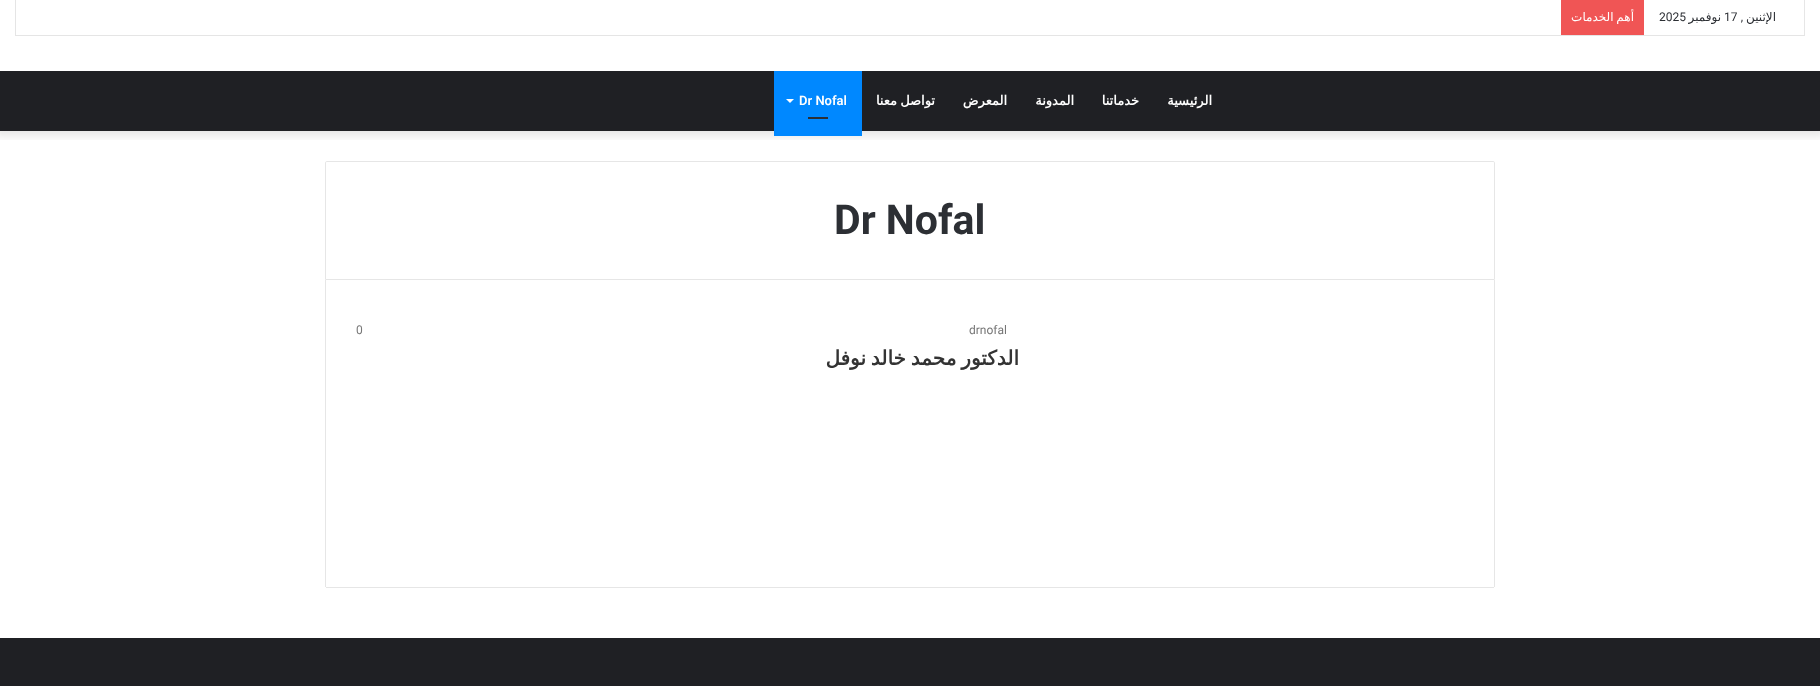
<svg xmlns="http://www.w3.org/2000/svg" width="1820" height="686">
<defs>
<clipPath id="clip1"><rect x="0" y="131" width="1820" height="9"/></clipPath>
</defs>
<rect width="100%" height="100%" fill="#fff"/>
<g clip-path="url(#clip1)">
<rect x="-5" y="-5" width="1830" height="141" fill="#0000001a" filter="blur(5px)"/>
</g>
<path d="M1805 0v36l-1-1v-35z" fill="#e6e6e6"/>
<path d="M1805 36h-1790l1-1h1788z" fill="#0000001a"/>
<path d="M15 36v-36h1v35z" fill="#0000001a"/>
<text x="1776" y="21" style="font-family:DejaVu Sans;font-size:12px;direction:rtl;fill:#2c2f34">الإثنين</text>
<text x="1743" y="21" style="font-family:Roboto;font-size:12px;direction:rtl;fill:#2c2f34">,</text>
<text x="1724" y="21" style="font-family:Roboto;font-size:12px;fill:#2c2f34">17</text>
<text x="1721" y="21" style="font-family:DejaVu Sans;font-size:12px;direction:rtl;fill:#2c2f34">نوفمبر</text>
<text x="1659" y="21" style="font-family:Roboto;font-size:12px;fill:#2c2f34">2025</text>
<rect x="1561" width="83" height="35" fill="#f05555"/>
<text x="1634" y="21" word-spacing="-1" style="font-family:DejaVu Sans;font-size:12px;direction:rtl;fill:#fff">أهم الخدمات</text>
<rect y="71" width="1820" height="60" fill="#1f2024"/>
<text x="1212" y="105" style="font-family:DejaVu Sans;font-size:13px;font-weight:bold;direction:rtl;fill:#fff">الرئيسية</text>
<text x="1139" y="105" style="font-family:DejaVu Sans;font-size:13px;font-weight:bold;direction:rtl;fill:#fff">خدماتنا</text>
<text x="1074" y="105" style="font-family:DejaVu Sans;font-size:13px;font-weight:bold;direction:rtl;fill:#fff">المدونة</text>
<text x="1007" y="105" style="font-family:DejaVu Sans;font-size:13px;font-weight:bold;direction:rtl;fill:#fff">المعرض</text>
<text x="935" y="105" word-spacing="-1" style="font-family:DejaVu Sans;font-size:13px;font-weight:bold;direction:rtl;fill:#fff">تواصل معنا</text>
<rect x="774" y="71" width="88" height="65" fill="#08f"/>
<text x="799" y="105" style="font-family:Roboto;font-size:13px;font-weight:600;fill:#fff">Dr Nofal</text>
<path d="M786 99h8l-4 4z" fill="#fff"/>
<rect x="808" y="117" width="20" height="2" fill="#2c2f34"/>
<path d="M327 161.5h1166c1 0 1.5 .5 1.5 1.5v116.5h-1169v-116.5c0-1 .5-1.5 1.5-1.5z" fill="none" stroke="#e6e6e6"/>
<text x="834" y="234" style="font-family:Roboto;font-size:41px;font-weight:bold;fill:#2c2f34">Dr Nofal</text>
<rect x="1494" y="280" width="1" height="307" fill="#e6e6e6"/>
<rect x="326" y="587" width="1168" height="1" fill="#e6e6e6"/>
<rect x="325" y="280" width="1" height="307" fill="#e6e6e6"/>
<text x="969" y="334" style="font-family:Roboto;font-size:12px;fill:#767676">drnofal</text>
<text x="356" y="334" style="font-family:Roboto;font-size:12px;fill:#767676">0</text>
<text x="1019" y="365" word-spacing="-1.5" style="font-family:DejaVu Sans;font-size:20px;font-weight:bold;direction:rtl;fill:#333">الدكتور محمد خالد نوفل</text>
<rect y="638" width="1820" height="48" fill="#1f2024"/>
</svg>
